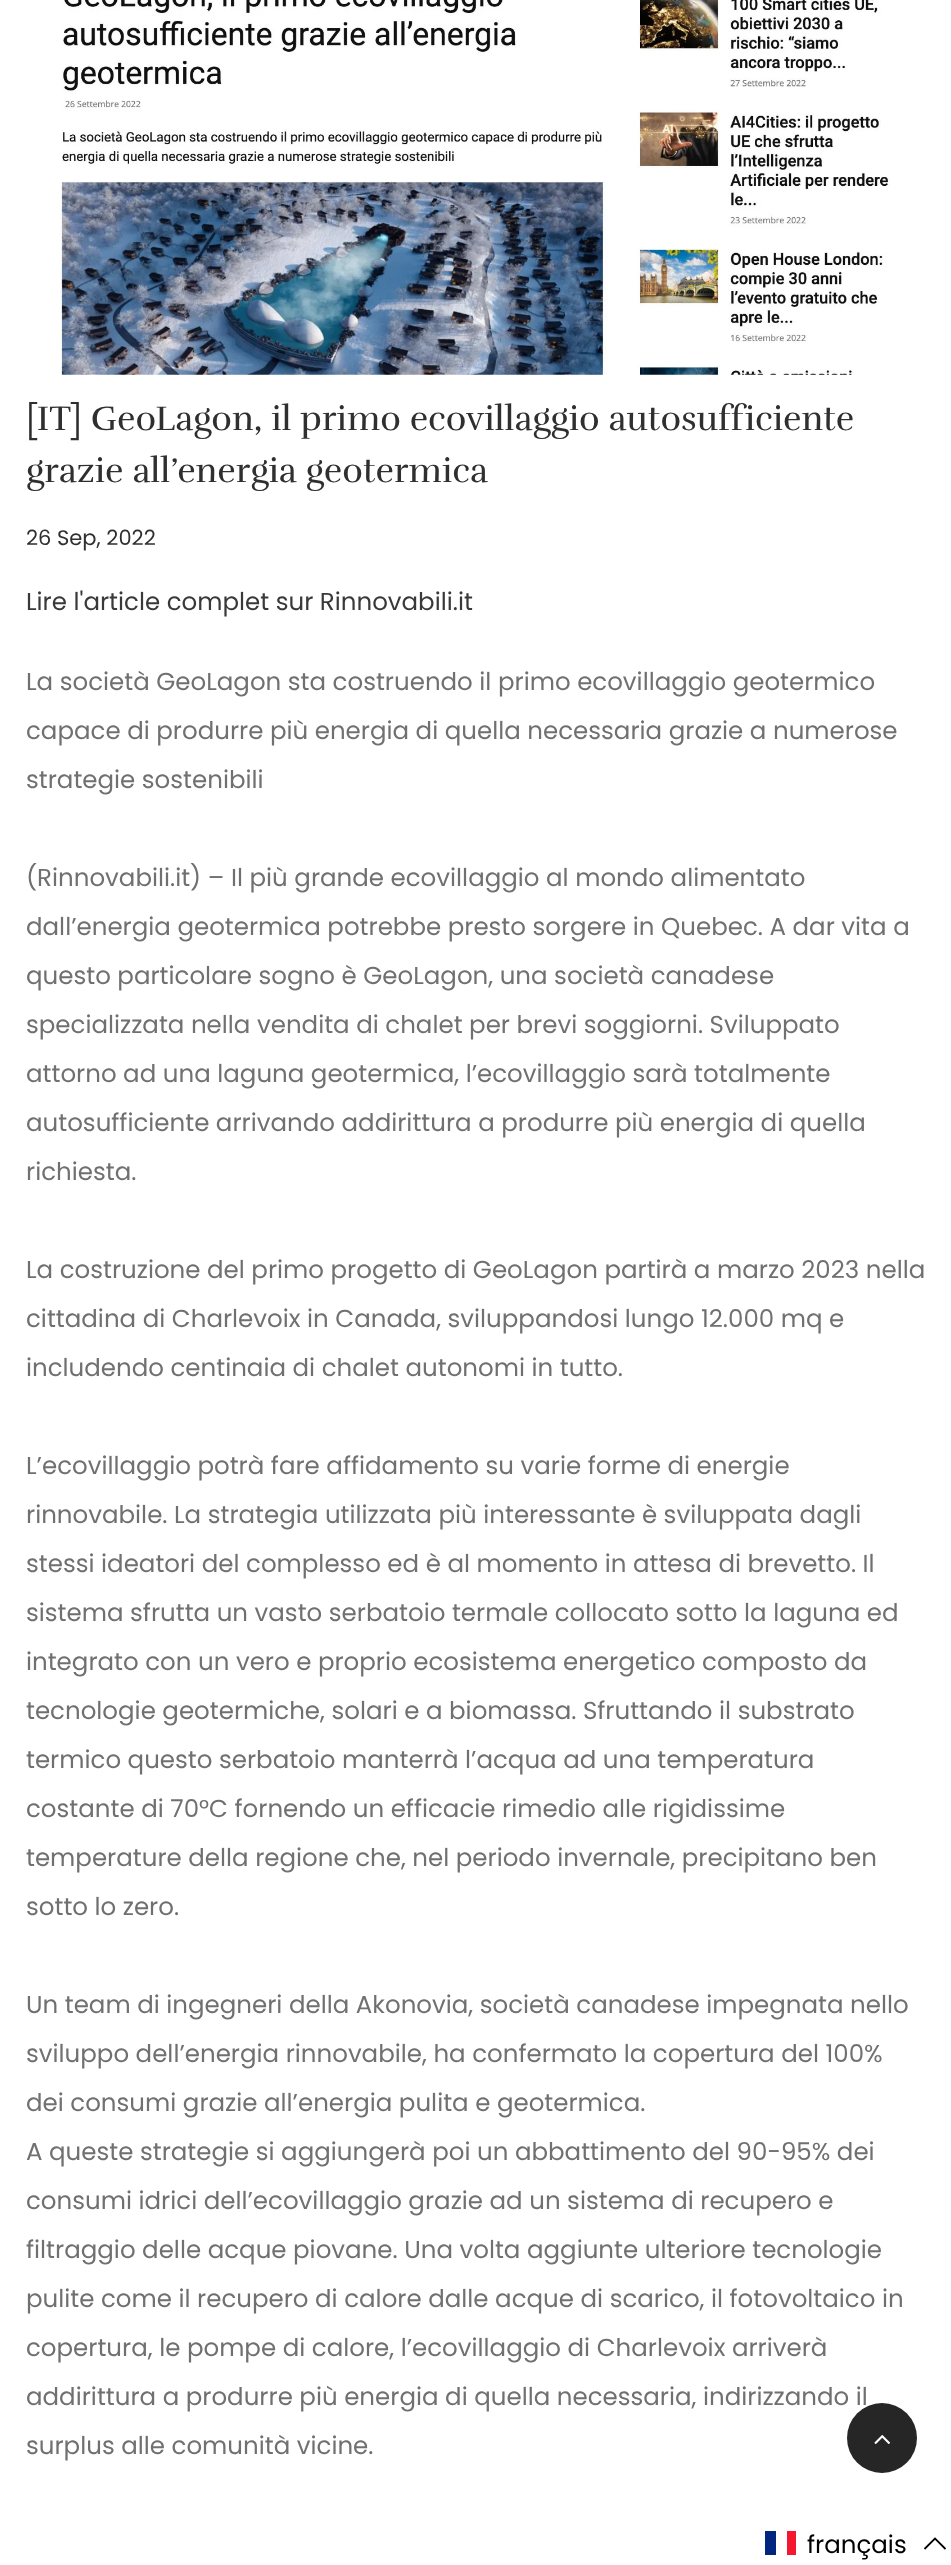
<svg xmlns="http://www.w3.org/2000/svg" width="951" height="2565">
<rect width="100%" height="100%" fill="#fff"/>
<image x="60" y="0" width="830" height="375" href="media/1.png"/>
<text x="26" y="430" style="font-family:Rufina;font-size:35px;fill:#2f2f2f">[IT] GeoLagon, il primo ecovillaggio autosufficiente</text>
<text x="26" y="482" style="font-family:Rufina;font-size:35px;fill:#2f2f2f">grazie all’energia geotermica</text>
<text x="26" y="545" style="font-family:Poppins;font-size:21px;fill:#2f2f2f">26 Sep, 2022</text>
<text x="26" y="610" style="font-family:Poppins;font-size:24.5px;fill:#393939">Lire l'article complet sur Rinnovabili.it</text>
<text x="26" y="690" style="font-family:Poppins;font-size:24.5px;fill:#707070">La società GeoLagon sta costruendo il primo ecovillaggio geotermico</text>
<text x="26" y="739" style="font-family:Poppins;font-size:24.5px;fill:#707070">capace di produrre più energia di quella necessaria grazie a numerose</text>
<text x="26" y="788" style="font-family:Poppins;font-size:24.5px;fill:#707070">strategie sostenibili</text>
<text x="26" y="886" style="font-family:Poppins;font-size:24.5px;fill:#707070">(Rinnovabili.it) – Il più grande ecovillaggio al mondo alimentato</text>
<text x="26" y="935" style="font-family:Poppins;font-size:24.5px;fill:#707070">dall’energia geotermica potrebbe presto sorgere in Quebec. A dar vita a</text>
<text x="26" y="984" style="font-family:Poppins;font-size:24.5px;fill:#707070">questo particolare sogno è GeoLagon, una società canadese</text>
<text x="26" y="1033" style="font-family:Poppins;font-size:24.5px;fill:#707070">specializzata nella vendita di chalet per brevi soggiorni. Sviluppato</text>
<text x="26" y="1082" style="font-family:Poppins;font-size:24.5px;fill:#707070">attorno ad una laguna geotermica, l’ecovillaggio sarà totalmente</text>
<text x="26" y="1131" style="font-family:Poppins;font-size:24.5px;fill:#707070">autosufficiente arrivando addirittura a produrre più energia di quella</text>
<text x="26" y="1180" style="font-family:Poppins;font-size:24.5px;fill:#707070">richiesta.</text>
<text x="26" y="1278" style="font-family:Poppins;font-size:24.5px;fill:#707070">La costruzione del primo progetto di GeoLagon partirà a marzo 2023 nella</text>
<text x="26" y="1327" style="font-family:Poppins;font-size:24.5px;fill:#707070">cittadina di Charlevoix in Canada, sviluppandosi lungo 12.000 mq e</text>
<text x="26" y="1376" style="font-family:Poppins;font-size:24.5px;fill:#707070">includendo centinaia di chalet autonomi in tutto.</text>
<text x="26" y="1474" style="font-family:Poppins;font-size:24.5px;fill:#707070">L’ecovillaggio potrà fare affidamento su varie forme di energie</text>
<text x="26" y="1523" style="font-family:Poppins;font-size:24.5px;fill:#707070">rinnovabile. La strategia utilizzata più interessante è sviluppata dagli</text>
<text x="26" y="1572" style="font-family:Poppins;font-size:24.5px;fill:#707070">stessi ideatori del complesso ed è al momento in attesa di brevetto. Il</text>
<text x="26" y="1621" style="font-family:Poppins;font-size:24.5px;fill:#707070">sistema sfrutta un vasto serbatoio termale collocato sotto la laguna ed</text>
<text x="26" y="1670" style="font-family:Poppins;font-size:24.5px;fill:#707070">integrato con un vero e proprio ecosistema energetico composto da</text>
<text x="26" y="1719" style="font-family:Poppins;font-size:24.5px;fill:#707070">tecnologie geotermiche, solari e a biomassa. Sfruttando il substrato</text>
<text x="26" y="1768" style="font-family:Poppins;font-size:24.5px;fill:#707070">termico questo serbatoio manterrà l’acqua ad una temperatura</text>
<text x="26" y="1817" style="font-family:Poppins;font-size:24.5px;fill:#707070">costante di 70°C fornendo un efficacie rimedio alle rigidissime</text>
<text x="26" y="1866" style="font-family:Poppins;font-size:24.5px;fill:#707070">temperature della regione che, nel periodo invernale, precipitano ben</text>
<text x="26" y="1915" style="font-family:Poppins;font-size:24.5px;fill:#707070">sotto lo zero.</text>
<text x="26" y="2013" style="font-family:Poppins;font-size:24.5px;fill:#707070">Un team di ingegneri della Akonovia, società canadese impegnata nello</text>
<text x="26" y="2062" style="font-family:Poppins;font-size:24.5px;fill:#707070">sviluppo dell’energia rinnovabile, ha confermato la copertura del 100%</text>
<text x="26" y="2111" style="font-family:Poppins;font-size:24.5px;fill:#707070">dei consumi grazie all’energia pulita e geotermica.</text>
<text x="26" y="2160" style="font-family:Poppins;font-size:24.5px;fill:#707070">A queste strategie si aggiungerà poi un abbattimento del 90-95% dei</text>
<text x="26" y="2209" style="font-family:Poppins;font-size:24.5px;fill:#707070">consumi idrici dell’ecovillaggio grazie ad un sistema di recupero e</text>
<text x="26" y="2258" style="font-family:Poppins;font-size:24.5px;fill:#707070">filtraggio delle acque piovane. Una volta aggiunte ulteriore tecnologie</text>
<text x="26" y="2307" style="font-family:Poppins;font-size:24.5px;fill:#707070">pulite come il recupero di calore dalle acque di scarico, il fotovoltaico in</text>
<text x="26" y="2356" style="font-family:Poppins;font-size:24.5px;fill:#707070">copertura, le pompe di calore, l’ecovillaggio di Charlevoix arriverà</text>
<text x="26" y="2405" style="font-family:Poppins;font-size:24.5px;fill:#707070">addirittura a produrre più energia di quella necessaria, indirizzando il</text>
<text x="26" y="2454" style="font-family:Poppins;font-size:24.5px;fill:#707070">surplus alle comunità vicine.</text>
<circle cx="882" cy="2438" r="35" fill="#262626"/>
<image x="874" y="2435" width="16" height="9" href="media/2.png"/>
<rect x="765" y="2531" width="11" height="24" fill="#00267f"/>
<rect x="787" y="2531" width="9" height="24" fill="#f31830"/>
<text x="807" y="2553" style="font-family:Poppins;font-size:24.5px;fill:#000">français</text>
<path d="M945.5 2549l-10.5-10.5l-10.5 10.5" fill="none" stroke="#000" stroke-width="1.8"/>
</svg>
